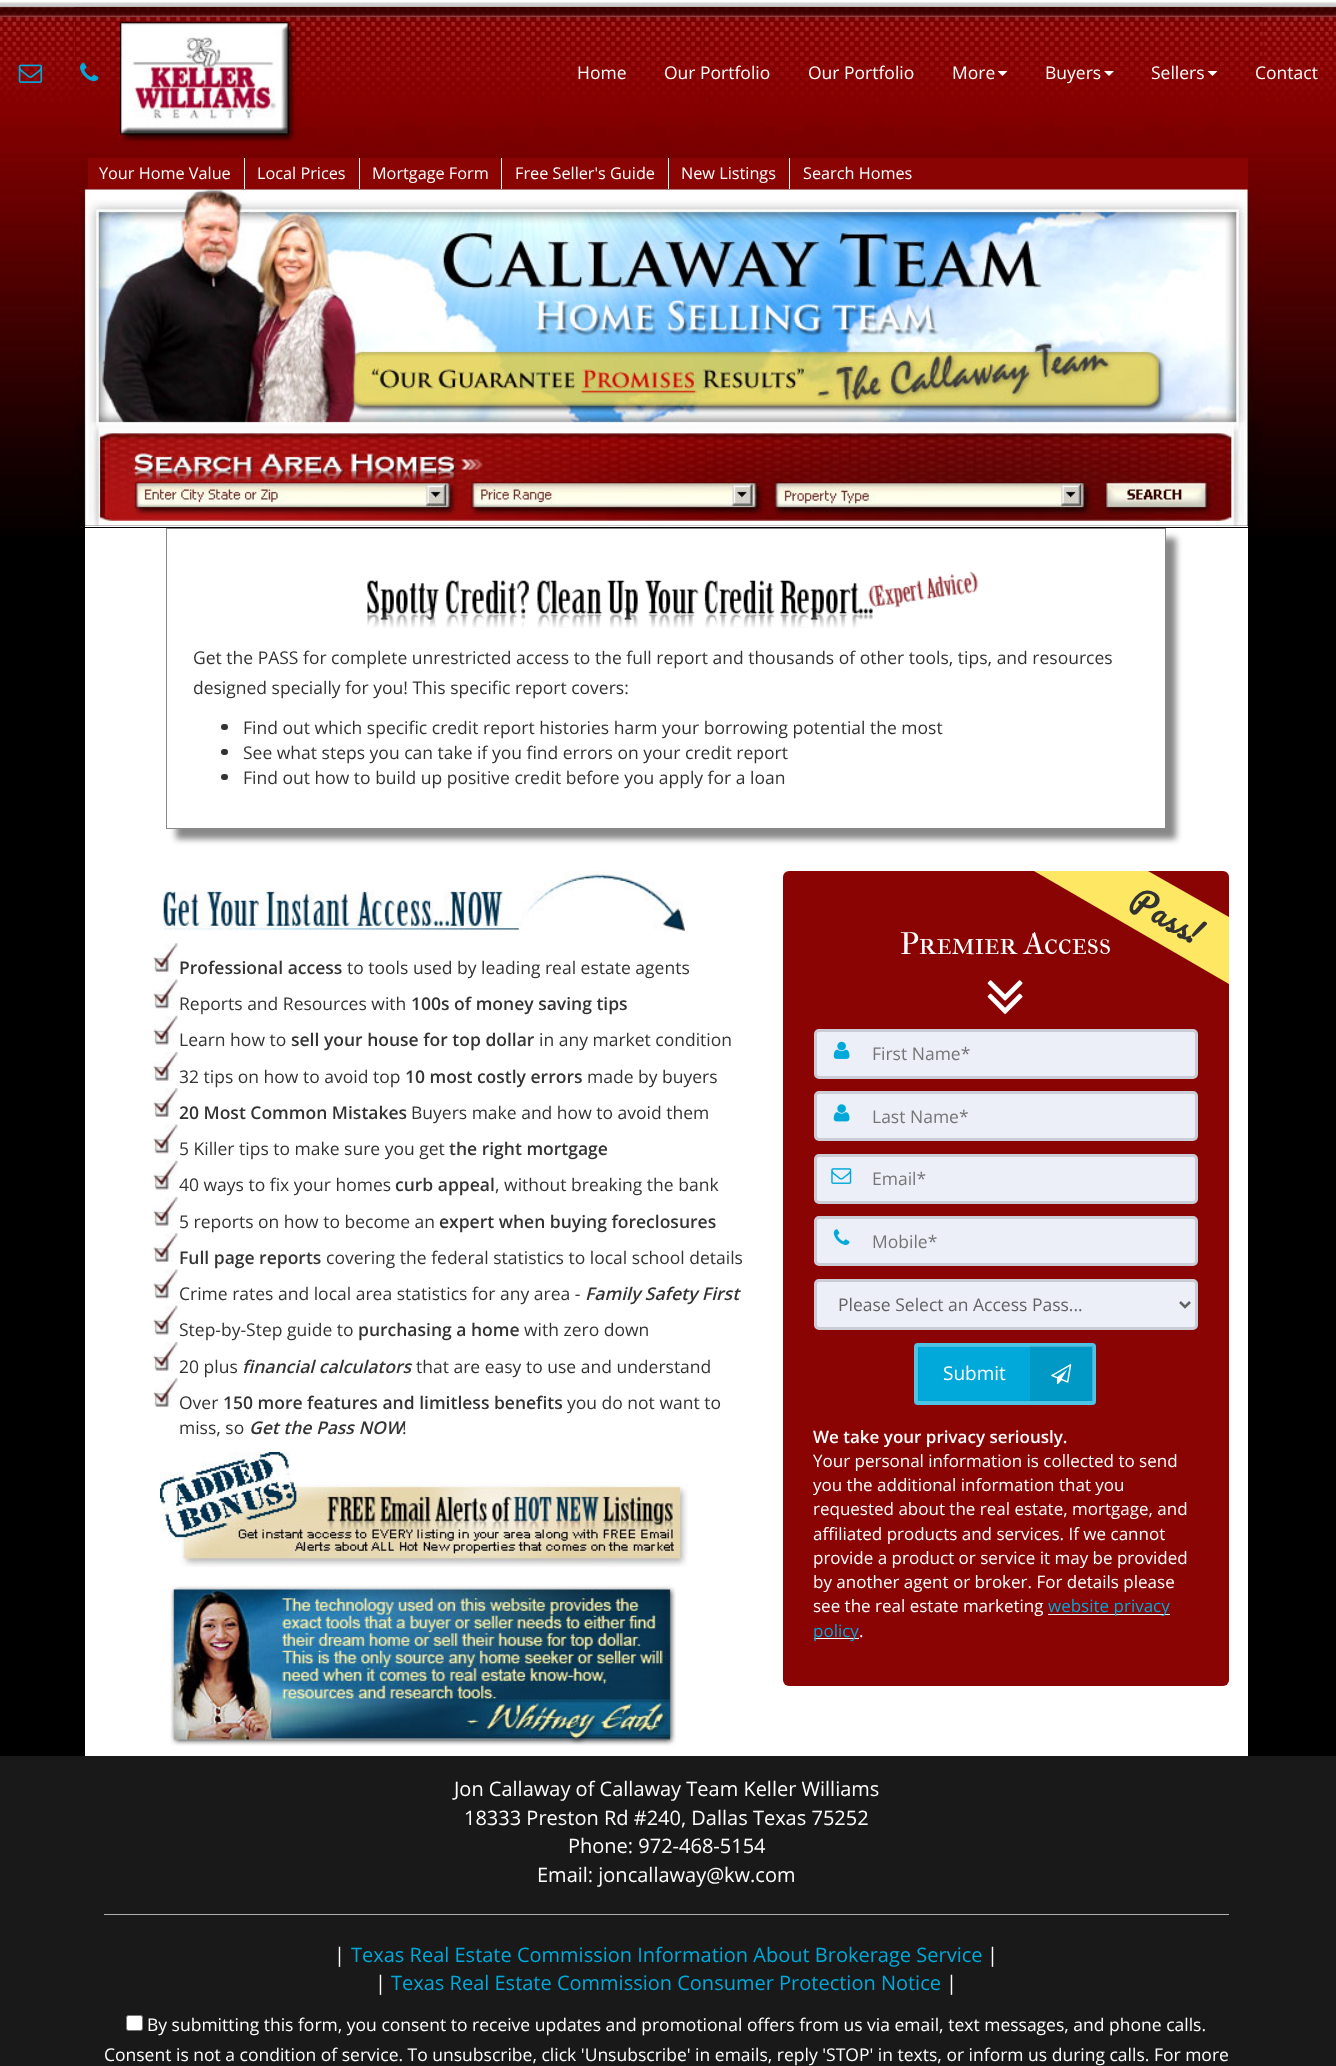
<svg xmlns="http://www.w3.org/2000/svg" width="1336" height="2066">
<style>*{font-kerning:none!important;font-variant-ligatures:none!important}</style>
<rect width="100%" height="100%" fill="#000"/>
<image x="0" y="0" width="1336" height="537" href="media/1.png"/>
<image x="18" y="64" width="25" height="19" href="media/2.png"/>
<image x="75" y="7" width="1188" height="519" href="media/4.png"/>
<image x="80" y="62" width="19" height="20" href="media/3.png"/>
<text x="577" y="79" style="font-family:Open Sans;font-size:17.5px;fill:#fff">Home</text>
<text x="664" y="79" style="font-family:Open Sans;font-size:17.5px;fill:#fff">Our Portfolio</text>
<text x="808" y="79" style="font-family:Open Sans;font-size:17.5px;fill:#fff">Our Portfolio</text>
<text x="952" y="79" style="font-family:Open Sans;font-size:17.5px;fill:#fff">More</text>
<path d="M997.5 71h10l-5 5z" fill="#fff"/>
<text x="1045" y="79" style="font-family:Open Sans;font-size:17.5px;fill:#fff">Buyers</text>
<path d="M1104 71h10l-5 5z" fill="#fff"/>
<text x="1151" y="79" style="font-family:Open Sans;font-size:17.5px;fill:#fff">Sellers</text>
<path d="M1207.5 71h10l-5 5z" fill="#fff"/>
<text x="1255" y="79" style="font-family:Open Sans;font-size:17.5px;fill:#fff">Contact</text>
<rect x="88" y="158" width="1160" height="31" fill="#8a0404"/>
<text x="99" y="179" style="font-family:Open Sans;font-size:16.25px;fill:#fff">Your Home Value</text>
<rect x="244" y="158" width="1" height="31" fill="#fff"/>
<text x="257" y="179" style="font-family:Open Sans;font-size:16.25px;fill:#fff">Local Prices</text>
<rect x="359" y="158" width="1" height="31" fill="#fff"/>
<text x="372" y="179" style="font-family:Open Sans;font-size:16.25px;fill:#fff">Mortgage Form</text>
<rect x="501" y="158" width="1" height="31" fill="#fff"/>
<text x="515" y="179" style="font-family:Open Sans;font-size:16.25px;fill:#fff">Free Seller's Guide</text>
<rect x="668" y="158" width="1" height="31" fill="#fff"/>
<text x="681" y="179" style="font-family:Open Sans;font-size:16.25px;fill:#fff">New Listings</text>
<rect x="789" y="158" width="1" height="31" fill="#fff"/>
<text x="803" y="179" style="font-family:Open Sans;font-size:16.25px;fill:#fff">Search Homes</text>
<rect x="85" y="526" width="1163" height="1" fill="#fff"/>
<rect x="85" y="528" width="1163" height="1228" fill="#fff"/>
<rect x="176" y="538" width="1000" height="301" fill="#888" filter="blur(3px)"/>
<rect x="170" y="532" width="995" height="296" fill="#fff"/>
<rect x="166.5" y="528.5" width="999" height="300" fill="none" stroke="#888"/>
<image x="367" y="571" width="611" height="57" href="media/5.png"/>
<text x="193" y="664" style="font-family:Open Sans;font-size:17.5px;fill:#333">Get the PASS for complete unrestricted access to the full report and thousands of other tools, tips, and resources</text>
<text x="193" y="694" style="font-family:Open Sans;font-size:17.5px;fill:#333">designed specially for you! This specific report covers:</text>
<rect x="221" y="724" width="7" height="6" rx="3" fill="#333"/>
<text x="243" y="734" style="font-family:Open Sans;font-size:17.5px;fill:#333">Find out which specific credit report histories harm your borrowing potential the most</text>
<rect x="221" y="749" width="7" height="6" rx="3" fill="#333"/>
<text x="243" y="759" style="font-family:Open Sans;font-size:17.5px;fill:#333">See what steps you can take if you find errors on your credit report</text>
<rect x="221" y="774" width="7" height="6" rx="3" fill="#333"/>
<text x="243" y="784" style="font-family:Open Sans;font-size:17.5px;fill:#333">Find out how to build up positive credit before you apply for a loan</text>
<image x="163" y="871" width="522" height="60" href="media/6.png"/>
<image x="153" y="943" width="25" height="29" href="media/7.png"/>
<text x="179" y="974" style="font-family:Open Sans;font-size:17.5px;font-weight:600;fill:#333">Professional access</text>
<text x="347" y="974" style="font-family:Open Sans;font-size:17.5px;fill:#333">to tools used by leading real estate agents</text>
<image x="153" y="979" width="25" height="30" href="media/8.png"/>
<text x="179" y="1010" style="font-family:Open Sans;font-size:17.5px;fill:#333">Reports and Resources with</text>
<text x="411" y="1010" style="font-family:Open Sans;font-size:17.5px;font-weight:600;fill:#333">100s of money saving tips</text>
<image x="153" y="1015" width="25" height="30" href="media/9.png"/>
<text x="179" y="1046" style="font-family:Open Sans;font-size:17.5px;fill:#333">Learn how to</text>
<text x="291" y="1046" style="font-family:Open Sans;font-size:17.5px;font-weight:600;fill:#333">sell your house for top dollar</text>
<text x="539" y="1046" style="font-family:Open Sans;font-size:17.5px;fill:#333">in any market condition</text>
<image x="153" y="1052" width="25" height="29" href="media/10.png"/>
<text x="179" y="1083" style="font-family:Open Sans;font-size:17.5px;fill:#333">32 tips on how to avoid top</text>
<text x="405" y="1083" style="font-family:Open Sans;font-size:17.5px;font-weight:600;fill:#333">10 most costly errors</text>
<text x="587" y="1083" style="font-family:Open Sans;font-size:17.5px;fill:#333">made by buyers</text>
<image x="153" y="1088" width="25" height="29" href="media/7.png"/>
<text x="179" y="1119" style="font-family:Open Sans;font-size:17.5px;font-weight:600;fill:#333">20 Most Common Mistakes</text>
<text x="411" y="1119" style="font-family:Open Sans;font-size:17.5px;fill:#333">Buyers make and how to avoid them</text>
<image x="153" y="1124" width="25" height="30" href="media/8.png"/>
<text x="179" y="1155" style="font-family:Open Sans;font-size:17.5px;fill:#333">5 Killer tips to make sure you get</text>
<text x="449" y="1155" style="font-family:Open Sans;font-size:17.5px;font-weight:600;fill:#333">the right mortgage</text>
<image x="153" y="1160" width="25" height="30" href="media/11.png"/>
<text x="179" y="1191" style="font-family:Open Sans;font-size:17.5px;fill:#333">40 ways to fix your homes</text>
<text x="395" y="1191" style="font-family:Open Sans;font-size:17.5px;font-weight:600;fill:#333">curb appeal</text>
<text x="495" y="1191" style="font-family:Open Sans;font-size:17.5px;fill:#333">, without breaking the bank</text>
<image x="153" y="1197" width="25" height="29" href="media/10.png"/>
<text x="179" y="1228" style="font-family:Open Sans;font-size:17.5px;fill:#333">5 reports on how to become an</text>
<text x="439" y="1228" style="font-family:Open Sans;font-size:17.5px;font-weight:600;fill:#333">expert when buying foreclosures</text>
<image x="153" y="1233" width="25" height="29" href="media/7.png"/>
<text x="179" y="1264" style="font-family:Open Sans;font-size:17.5px;font-weight:600;fill:#333">Full page reports</text>
<text x="326" y="1264" style="font-family:Open Sans;font-size:17.5px;fill:#333">covering the federal statistics to local school details</text>
<image x="153" y="1269" width="25" height="30" href="media/8.png"/>
<text x="179" y="1300" style="font-family:Open Sans;font-size:17.5px;fill:#333">Crime rates and local area statistics for any area -</text>
<text x="585" y="1300" style="font-family:Open Sans;font-size:17.5px;font-weight:600;font-style:italic;fill:#333">Family Safety First</text>
<image x="153" y="1305" width="25" height="30" href="media/9.png"/>
<text x="179" y="1336" style="font-family:Open Sans;font-size:17.5px;fill:#333">Step-by-Step guide to</text>
<text x="358" y="1336" style="font-family:Open Sans;font-size:17.5px;font-weight:600;fill:#333">purchasing a home</text>
<text x="524" y="1336" style="font-family:Open Sans;font-size:17.5px;fill:#333">with zero down</text>
<image x="153" y="1342" width="25" height="29" href="media/10.png"/>
<text x="179" y="1373" style="font-family:Open Sans;font-size:17.5px;fill:#333">20 plus</text>
<text x="242" y="1373" style="font-family:Open Sans;font-size:17.5px;font-weight:600;font-style:italic;fill:#333">financial calculators</text>
<text x="416" y="1373" style="font-family:Open Sans;font-size:17.5px;fill:#333">that are easy to use and understand</text>
<image x="153" y="1378" width="25" height="29" href="media/7.png"/>
<text x="179" y="1409" style="font-family:Open Sans;font-size:17.5px;fill:#333">Over</text>
<text x="223" y="1409" style="font-family:Open Sans;font-size:17.5px;font-weight:600;fill:#333">150 more features and limitless benefits</text>
<text x="567" y="1409" style="font-family:Open Sans;font-size:17.5px;fill:#333">you do not want to</text>
<text x="179" y="1434" style="font-family:Open Sans;font-size:17.5px;fill:#333">miss, so</text>
<text x="249" y="1434" style="font-family:Open Sans;font-size:17.5px;font-weight:600;font-style:italic;fill:#333">Get the Pass NOW</text>
<text x="402" y="1434" style="font-family:Open Sans;font-size:17.5px;fill:#333">!</text>
<image x="160" y="1452" width="528" height="115" href="media/12.png"/>
<image x="170" y="1585" width="506" height="161" href="media/13.png"/>
<rect x="783" y="871" width="446" height="815" rx="6" fill="#8a0404"/>
<text x="900" y="954" style="font-family:IM FELL French Canon SC;font-size:31.25px;fill:#fff">Premier Access</text>
<path d="M1229 917v67l-195-113h114z" fill="#fde763"/>
<text x="1127" y="907" transform="rotate(30 1127 907)" style="font-family:Pacifico;font-size:31.25px;fill:#333">Pass!</text>
<image x="987" y="980" width="36" height="34" href="media/14.png"/>
<rect x="815.5" y="1030.5" width="381" height="47" rx="3.5" fill="#eceff8" stroke="#cacdd5" stroke-width="3"/>
<image x="833" y="1041" width="17" height="18" href="media/15.png"/>
<text x="872" y="1060" style="font-family:Open Sans;font-size:17.5px;fill:#757575">First Name*</text>
<rect x="815.5" y="1092.5" width="381" height="47" rx="3.5" fill="#eceff8" stroke="#cacdd5" stroke-width="3"/>
<image x="833" y="1104" width="17" height="18" href="media/16.png"/>
<text x="872" y="1123" style="font-family:Open Sans;font-size:17.5px;fill:#757575">Last Name*</text>
<rect x="815.5" y="1155.5" width="381" height="47" rx="3.5" fill="#eceff8" stroke="#cacdd5" stroke-width="3"/>
<image x="831" y="1168" width="21" height="16" href="media/17.png"/>
<text x="872" y="1185" style="font-family:Open Sans;font-size:17.5px;fill:#757575">Email*</text>
<rect x="815.5" y="1217.5" width="381" height="47" rx="3.5" fill="#eceff8" stroke="#cacdd5" stroke-width="3"/>
<image x="833" y="1229" width="17" height="16" href="media/18.png"/>
<text x="872" y="1248" style="font-family:Open Sans;font-size:17.5px;fill:#757575">Mobile*</text>
<rect x="815.5" y="1280.5" width="381" height="48" rx="3.5" fill="#eceff8" stroke="#cacdd5" stroke-width="3"/>
<path d="M1180 1302l5 5l5-5" fill="none" stroke="#626262" stroke-width="2.5"/>
<text x="838" y="1311" style="font-family:Open Sans;font-size:17.5px;fill:#626262">Please Select an Access Pass...</text>
<rect x="914" y="1343" width="182" height="62" rx="4" fill="#00a9da"/>
<rect x="918.5" y="1346.5" width="174" height="54" fill="none" stroke="#00a4d3"/>
<rect x="916" y="1345" width="178" height="58" rx="2" fill="none" stroke="#ffffff4d" stroke-width="4"/>
<text x="943" y="1380" style="font-family:Open Sans;font-size:19px;fill:#fff">Submit</text>
<rect x="1030" y="1346" width="63" height="55" fill="#00000017"/>
<image x="1051" y="1364" width="21" height="21" href="media/19.png"/>
<text x="813" y="1443" style="font-family:Open Sans;font-size:17px;font-weight:600;fill:#fff">We take your privacy seriously.</text>
<text x="813" y="1467" style="font-family:Open Sans;font-size:17px;fill:#fff">Your personal information is collected to send</text>
<text x="813" y="1491" style="font-family:Open Sans;font-size:17px;fill:#fff">you the additional information that you</text>
<text x="813" y="1515" style="font-family:Open Sans;font-size:17px;fill:#fff">requested about the real estate, mortgage, and</text>
<text x="813" y="1540" style="font-family:Open Sans;font-size:17px;fill:#fff">affiliated products and services. If we cannot</text>
<text x="813" y="1564" style="font-family:Open Sans;font-size:17px;fill:#fff">provide a product or service it may be provided</text>
<text x="813" y="1588" style="font-family:Open Sans;font-size:17px;fill:#fff">by another agent or broker. For details please</text>
<text x="813" y="1612" style="font-family:Open Sans;font-size:17px;fill:#fff">see the real estate marketing</text>
<rect x="1048" y="1614" width="122" height="1" fill="#fff"/>
<text x="1048" y="1612" style="font-family:Open Sans;font-size:17px;fill:#00a9da">website privacy</text>
<rect x="814" y="1638" width="45" height="1" fill="#fff"/>
<text x="813" y="1637" style="font-family:Open Sans;font-size:17px;fill:#00a9da">policy</text>
<text x="859" y="1637" style="font-family:Open Sans;font-size:17px;fill:#fff">.</text>
<rect y="1756" width="1336" height="310" fill="#191919"/>
<text x="454" y="1796" style="font-family:Open Sans;font-size:20px;fill:#fff">Jon Callaway of Callaway Team Keller Williams</text>
<text x="464" y="1825" style="font-family:Open Sans;font-size:20px;fill:#fff">18333 Preston Rd #240, Dallas Texas 75252</text>
<text x="568" y="1853" style="font-family:Open Sans;font-size:20px;fill:#fff">Phone: 972-468-5154</text>
<text x="537" y="1882" style="font-family:Open Sans;font-size:20px;fill:#fff">Email: joncallaway@kw.com</text>
<rect x="104" y="1914" width="1125" height="1" fill="#b1b1b1"/>
<text x="334" y="1962" style="font-family:Open Sans;font-size:20px;fill:#fff">|</text>
<text x="351" y="1962" style="font-family:Open Sans;font-size:20px;fill:#00a9da">Texas Real Estate Commission Information About Brokerage Service</text>
<text x="987" y="1962" style="font-family:Open Sans;font-size:20px;fill:#fff">|</text>
<text x="375" y="1990" style="font-family:Open Sans;font-size:20px;fill:#fff">|</text>
<text x="391" y="1990" style="font-family:Open Sans;font-size:20px;fill:#00a9da">Texas Real Estate Commission Consumer Protection Notice</text>
<text x="946" y="1990" style="font-family:Open Sans;font-size:20px;fill:#fff">|</text>
<rect x="126.5" y="2015.5" width="16" height="15" rx="2" fill="#fff" stroke="#767676"/>
<text x="147" y="2031" style="font-family:Open Sans;font-size:17.5px;fill:#fff">By submitting this form, you consent to receive updates and promotional offers from us via email, text messages, and phone calls.</text>
<text x="104" y="2061" style="font-family:Open Sans;font-size:17.5px;fill:#fff">Consent is not a condition of service. To unsubscribe, click 'Unsubscribe' in emails, reply 'STOP' in texts, or inform us during calls. For more</text>
</svg>
